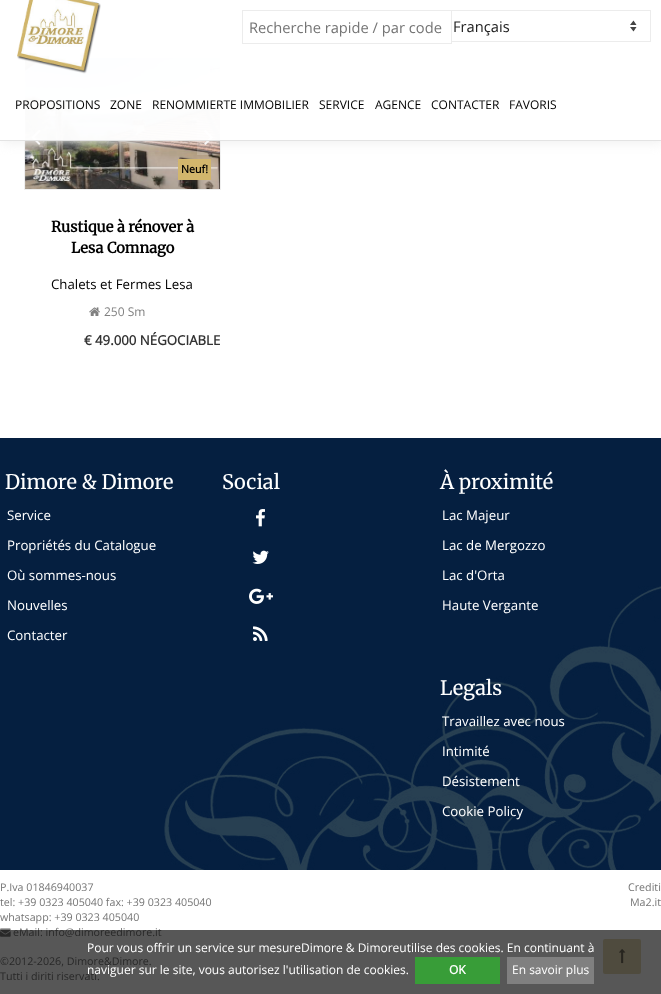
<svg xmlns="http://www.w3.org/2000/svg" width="661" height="994">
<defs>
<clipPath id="clip1"><rect x="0" y="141" width="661" height="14"/></clipPath>
</defs>
<rect width="100%" height="100%" fill="#fff"/>
<rect x="24.5" y="57.5" width="196" height="132" fill="none" stroke="#efefef"/>
<image x="25" y="58" width="195" height="131" href="media/2.png"/>
<rect x="24" y="120" width="23" height="35" fill="#ffffff2e"/>
<image x="31" y="130" width="10" height="15" href="media/3.png"/>
<rect x="197" y="120" width="24" height="35" fill="#ffffff2e"/>
<image x="204" y="130" width="9" height="15" href="media/4.png"/>
<rect x="178" y="159" width="33" height="21" fill="#d2b66c"/>
<g clip-path="url(#clip1)">
<rect x="2" y="2" width="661" height="141" fill="#f0f0f0" filter="blur(6px)"/>
</g>
<rect x="24" y="57" width="197" height="83" fill="#fffffffa"/>
<rect y="140" width="661" height="1" fill="#e3e3e3"/>
<image x="17" y="0" width="84" height="74" href="media/1.png"/>
<path d="M630 25l3.5-4.5l3 4.5zm6.5 2l-3 4.5l-3.5-4.5z" fill="#444"/>
<rect x="447.5" y="10.5" width="203" height="31" fill="none" stroke="#ececec"/>
<rect x="447" y="11" width="4" height="31" fill="#fff"/>
<rect x="242.5" y="10.5" width="209" height="33" fill="none" stroke="#ececec"/>
<text x="249" y="33" style="font-family:Open Sans;font-size:14.7px;fill:#757575">Recherche rapide / par code</text>
<text x="453" y="32" style="font-family:Open Sans;font-size:14.7px;fill:#222">Français</text>
<text x="15" y="109" style="font-family:Open Sans;font-size:12px;fill:#000">PROPOSITIONS</text>
<text x="110" y="109" style="font-family:Open Sans;font-size:12px;fill:#000">ZONE</text>
<text x="152" y="109" style="font-family:Open Sans;font-size:12px;fill:#000">RENOMMIERTE IMMOBILIER</text>
<text x="319" y="109" style="font-family:Open Sans;font-size:12px;fill:#000">SERVICE</text>
<text x="375" y="109" style="font-family:Open Sans;font-size:12px;fill:#000">AGENCE</text>
<text x="431" y="109" style="font-family:Open Sans;font-size:12px;fill:#000">CONTACTER</text>
<text x="509" y="109" style="font-family:Open Sans;font-size:12px;fill:#000">FAVORIS</text>
<text x="181" y="173" style="font-family:Open Sans;font-size:10.7px;font-weight:bold;fill:#000">Neuf!</text>
<text x="51" y="232" style="font-family:Merriweather;font-size:14.7px;font-weight:bold;fill:#000">Rustique à rénover à</text>
<text x="71" y="253" style="font-family:Merriweather;font-size:14.7px;font-weight:bold;fill:#000">Lesa Comnago</text>
<text x="51" y="289" style="font-family:Open Sans;font-size:13.25px;fill:#000">Chalets et Fermes Lesa</text>
<image x="89" y="307" width="11" height="9" href="media/5.png"/>
<text x="104" y="316" style="font-family:Open Sans;font-size:12px;fill:#808080">250 Sm</text>
<text x="84" y="345" style="font-family:Open Sans;font-size:13.25px;font-weight:bold;fill:#333">€ 49.000 NÉGOCIABLE</text>
<rect y="438" width="661" height="432" fill="#051f40"/>
<image x="164" y="586" width="497" height="284" href="media/6.png"/>
<text x="5" y="489" style="font-family:Merriweather;font-size:20px;font-weight:300;fill:#fff">Dimore &amp; Dimore</text>
<text x="7" y="520" style="font-family:Open Sans;font-size:13.25px;fill:#fff">Service</text>
<text x="7" y="550" style="font-family:Open Sans;font-size:13.25px;fill:#fff">Propriétés du Catalogue</text>
<text x="7" y="580" style="font-family:Open Sans;font-size:13.25px;fill:#fff">Où sommes-nous</text>
<text x="7" y="610" style="font-family:Open Sans;font-size:13.25px;fill:#fff">Nouvelles</text>
<text x="7" y="640" style="font-family:Open Sans;font-size:13.25px;fill:#fff">Contacter</text>
<text x="222" y="489" style="font-family:Merriweather;font-size:20px;font-weight:300;fill:#fff">Social</text>
<image x="256" y="509" width="9" height="18" href="media/7.png"/>
<image x="252" y="550" width="17" height="14" href="media/8.png"/>
<image x="249" y="588" width="24" height="16" href="media/9.png"/>
<image x="253" y="626" width="15" height="15" href="media/10.png"/>
<text x="440" y="489" style="font-family:Merriweather;font-size:20px;font-weight:300;fill:#fff">À proximité</text>
<text x="442" y="520" style="font-family:Open Sans;font-size:13.25px;fill:#fff">Lac Majeur</text>
<text x="442" y="550" style="font-family:Open Sans;font-size:13.25px;fill:#fff">Lac de Mergozzo</text>
<text x="442" y="580" style="font-family:Open Sans;font-size:13.25px;fill:#fff">Lac d'Orta</text>
<text x="442" y="610" style="font-family:Open Sans;font-size:13.25px;fill:#fff">Haute Vergante</text>
<text x="440" y="695" style="font-family:Merriweather;font-size:20px;font-weight:300;fill:#fff">Legals</text>
<text x="442" y="726" style="font-family:Open Sans;font-size:13.25px;fill:#fff">Travaillez avec nous</text>
<text x="442" y="756" style="font-family:Open Sans;font-size:13.25px;fill:#fff">Intimité</text>
<text x="442" y="786" style="font-family:Open Sans;font-size:13.25px;fill:#fff">Désistement</text>
<text x="442" y="816" style="font-family:Open Sans;font-size:13.25px;fill:#fff">Cookie Policy</text>
<text x="0" y="891" style="font-family:Open Sans;font-size:10.7px;fill:#757575">P.Iva 01846940037</text>
<text x="0" y="906" style="font-family:Open Sans;font-size:10.7px;fill:#757575">tel: +39 0323 405040 fax: +39 0323 405040</text>
<text x="0" y="921" style="font-family:Open Sans;font-size:10.7px;fill:#757575">whatsapp: +39 0323 405040</text>
<image x="0" y="928" width="11" height="9" href="media/11.png"/>
<text x="13" y="936" style="font-family:Open Sans;font-size:10.7px;fill:#757575">eMail: info@dimoreedimore.it</text>
<text x="0" y="965" style="font-family:Open Sans;font-size:10.7px;fill:#757575">©2012-2026, Dimore&amp;Dimore.</text>
<text x="0" y="980" style="font-family:Open Sans;font-size:10.7px;fill:#757575">Tutti i diriti riservati.</text>
<text x="628" y="891" style="font-family:Open Sans;font-size:10.7px;fill:#757575">Crediti</text>
<text x="630" y="906" style="font-family:Open Sans;font-size:10.7px;fill:#757575">Ma2.it</text>
<rect x="603" y="939" width="38" height="35" rx="2" fill="#e8dbb7"/>
<image x="619" y="949" width="7" height="15" href="media/12.png"/>
<rect y="930" width="661" height="64" fill="#000000a8"/>
<text x="87" y="952" style="font-family:Open Sans;font-size:12px;fill:#fff">Pour vous offrir un service sur mesureDimore &amp; Dimoreutilise des cookies. En continuant à</text>
<text x="87" y="974" style="font-family:Open Sans;font-size:12px;fill:#fff">naviguer sur le site, vous autorisez l'utilisation de cookies.</text>
<rect x="415" y="957" width="85" height="27" fill="#389d38"/>
<text x="449" y="974" style="font-family:Open Sans;font-size:12px;font-weight:bold;fill:#fff">OK</text>
<rect x="507" y="957" width="87" height="27" fill="#808080"/>
<text x="512" y="974" style="font-family:Open Sans;font-size:12px;fill:#fff">En savoir plus</text>
</svg>
